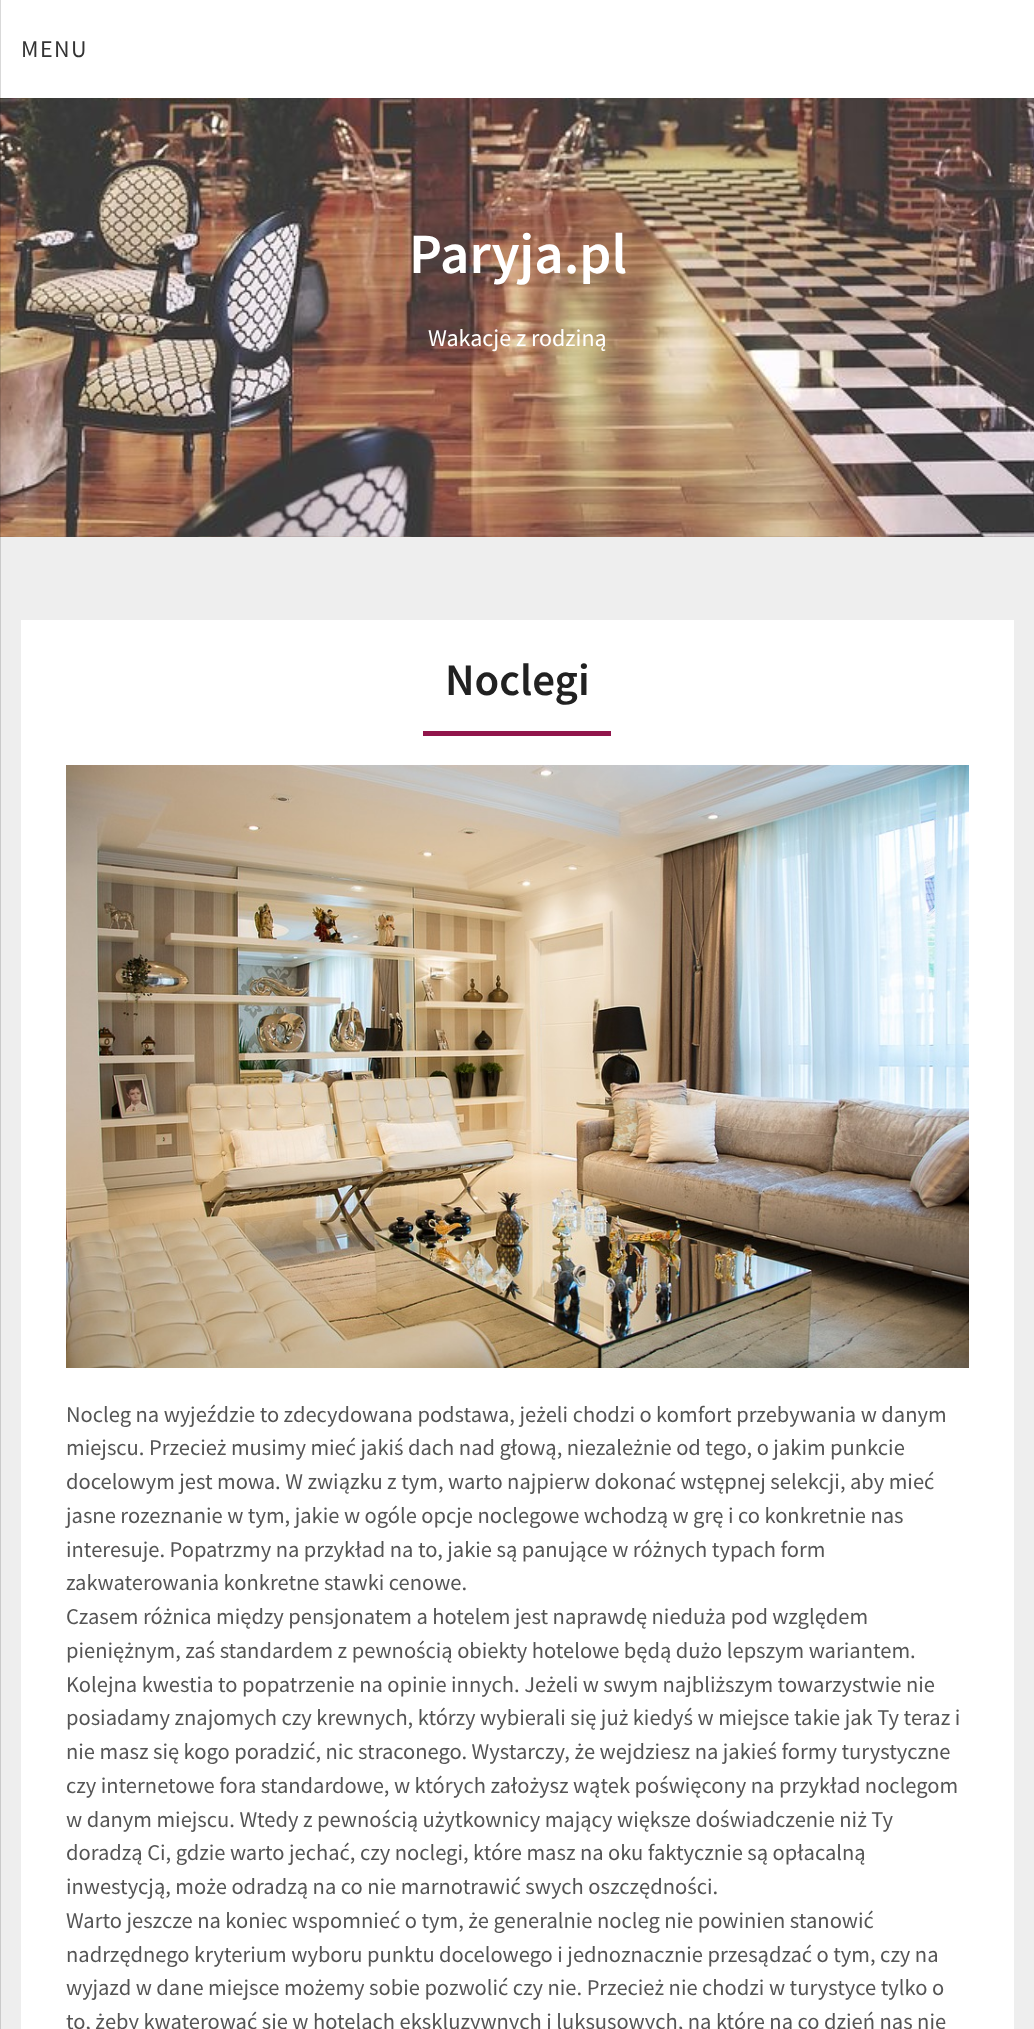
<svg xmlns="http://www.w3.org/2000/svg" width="1034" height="2029">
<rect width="100%" height="100%" fill="#eee"/>
<image x="0" y="98" width="1034" height="439" href="media/1.png"/>
<rect width="1034" height="98" fill="#fff"/>
<rect width="1" height="2029" fill="#00000026"/>
<text x="21" y="57" style="font-family:Source Sans Pro;font-size:24px;letter-spacing:1.5px;fill:#333">MENU</text>
<text x="409" y="273" style="font-family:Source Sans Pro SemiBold;font-size:57px;font-weight:600;fill:#fff">Paryja.pl</text>
<text x="428" y="346" style="font-family:Source Sans Pro;font-size:24px;fill:#fff">Wakacje z rodziną</text>
<rect x="21" y="620" width="993" height="1409" fill="#fff"/>
<text x="445" y="695" style="font-family:Source Sans Pro SemiBold;font-size:45px;font-weight:600;fill:#212121">Noclegi</text>
<rect x="423" y="731" width="188" height="5" fill="#91154b"/>
<image x="66" y="765" width="903" height="603" href="media/2.png"/>
<text x="66" y="1422" style="font-family:Source Sans Pro;font-size:22.5px;fill:#555">Nocleg na wyjeździe to zdecydowana podstawa, jeżeli chodzi o komfort przebywania w danym</text>
<text x="66" y="1455" style="font-family:Source Sans Pro;font-size:22.5px;fill:#555">miejscu. Przecież musimy mieć jakiś dach nad głową, niezależnie od tego, o jakim punkcie</text>
<text x="66" y="1489" style="font-family:Source Sans Pro;font-size:22.5px;fill:#555">docelowym jest mowa. W związku z tym, warto najpierw dokonać wstępnej selekcji, aby mieć</text>
<text x="66" y="1523" style="font-family:Source Sans Pro;font-size:22.5px;fill:#555">jasne rozeznanie w tym, jakie w ogóle opcje noclegowe wchodzą w grę i co konkretnie nas</text>
<text x="66" y="1557" style="font-family:Source Sans Pro;font-size:22.5px;fill:#555">interesuje. Popatrzmy na przykład na to, jakie są panujące w różnych typach form</text>
<text x="66" y="1590" style="font-family:Source Sans Pro;font-size:22.5px;fill:#555">zakwaterowania konkretne stawki cenowe.</text>
<text x="66" y="1624" style="font-family:Source Sans Pro;font-size:22.5px;fill:#555">Czasem różnica między pensjonatem a hotelem jest naprawdę nieduża pod względem</text>
<text x="66" y="1658" style="font-family:Source Sans Pro;font-size:22.5px;fill:#555">pieniężnym, zaś standardem z pewnością obiekty hotelowe będą dużo lepszym wariantem.</text>
<text x="66" y="1692" style="font-family:Source Sans Pro;font-size:22.5px;fill:#555">Kolejna kwestia to popatrzenie na opinie innych. Jeżeli w swym najbliższym towarzystwie nie</text>
<text x="66" y="1725" style="font-family:Source Sans Pro;font-size:22.5px;fill:#555">posiadamy znajomych czy krewnych, którzy wybierali się już kiedyś w miejsce takie jak Ty teraz i</text>
<text x="66" y="1759" style="font-family:Source Sans Pro;font-size:22.5px;fill:#555">nie masz się kogo poradzić, nic straconego. Wystarczy, że wejdziesz na jakieś formy turystyczne</text>
<text x="66" y="1793" style="font-family:Source Sans Pro;font-size:22.5px;fill:#555">czy internetowe fora standardowe, w których założysz wątek poświęcony na przykład noclegom</text>
<text x="66" y="1827" style="font-family:Source Sans Pro;font-size:22.5px;fill:#555">w danym miejscu. Wtedy z pewnością użytkownicy mający większe doświadczenie niż Ty</text>
<text x="66" y="1860" style="font-family:Source Sans Pro;font-size:22.5px;fill:#555">doradzą Ci, gdzie warto jechać, czy noclegi, które masz na oku faktycznie są opłacalną</text>
<text x="66" y="1894" style="font-family:Source Sans Pro;font-size:22.5px;fill:#555">inwestycją, może odradzą na co nie marnotrawić swych oszczędności.</text>
<text x="66" y="1928" style="font-family:Source Sans Pro;font-size:22.5px;fill:#555">Warto jeszcze na koniec wspomnieć o tym, że generalnie nocleg nie powinien stanowić</text>
<text x="66" y="1962" style="font-family:Source Sans Pro;font-size:22.5px;fill:#555">nadrzędnego kryterium wyboru punktu docelowego i jednoznacznie przesądzać o tym, czy na</text>
<text x="66" y="1995" style="font-family:Source Sans Pro;font-size:22.5px;fill:#555">wyjazd w dane miejsce możemy sobie pozwolić czy nie. Przecież nie chodzi w turystyce tylko o</text>
<text x="66" y="2029" style="font-family:Source Sans Pro;font-size:22.5px;fill:#555">to, żeby kwaterować się w hotelach ekskluzywnych i luksusowych, na które na co dzień nas nie</text>
</svg>
